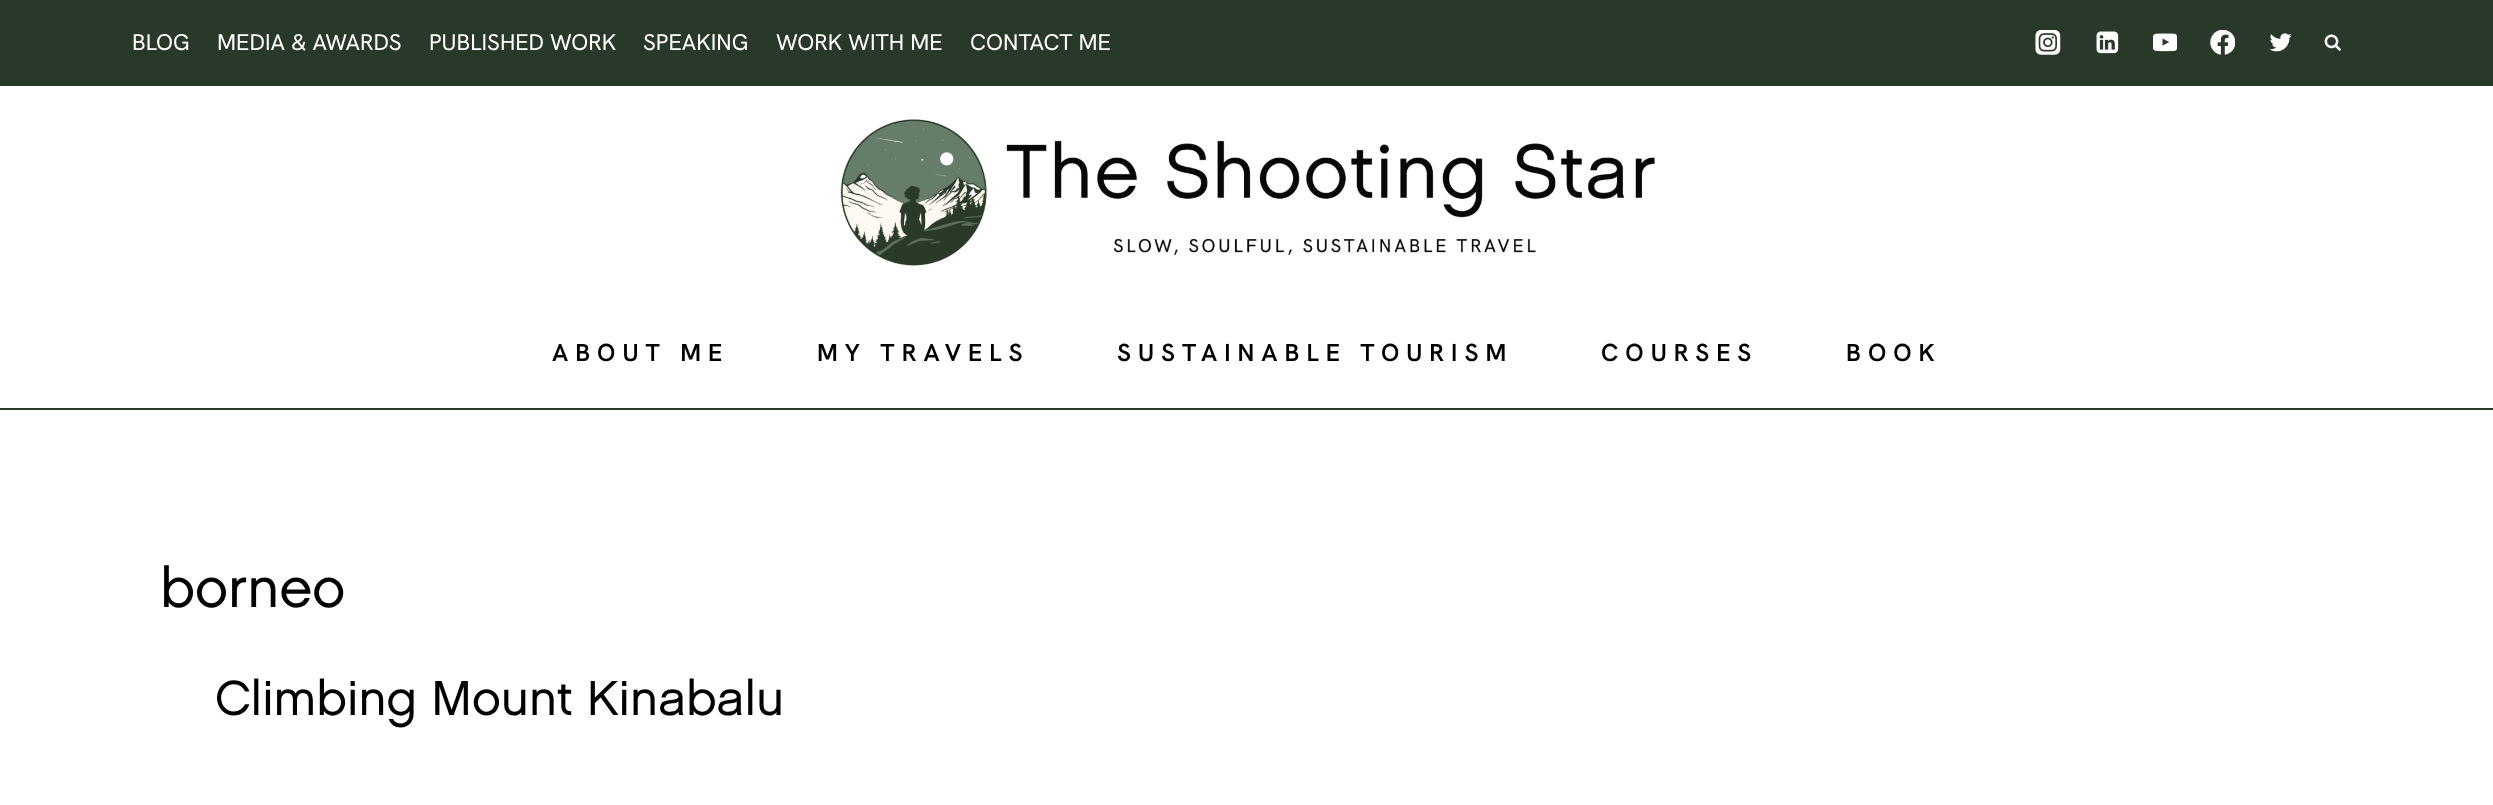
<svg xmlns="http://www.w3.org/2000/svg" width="2493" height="805">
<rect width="100%" height="100%" fill="#fff"/>
<rect width="2493" height="86" fill="#293929"/>
<text x="132" y="50" style="font-family:Hanken Grotesk;font-size:22.75px;fill:#fff">BLOG</text>
<text x="217" y="50" style="font-family:Hanken Grotesk;font-size:22.75px;fill:#fff">MEDIA &amp; AWARDS</text>
<text x="429" y="50" style="font-family:Hanken Grotesk;font-size:22.75px;fill:#fff">PUBLISHED WORK</text>
<text x="643" y="50" style="font-family:Hanken Grotesk;font-size:22.75px;fill:#fff">SPEAKING</text>
<text x="776" y="50" style="font-family:Hanken Grotesk;font-size:22.75px;fill:#fff">WORK WITH ME</text>
<text x="970" y="50" style="font-family:Hanken Grotesk;font-size:22.75px;fill:#fff">CONTACT ME</text>
<image x="2035" y="30" width="26" height="25" href="media/1.png"/>
<image x="2096" y="31" width="23" height="23" href="media/2.png"/>
<image x="2153" y="33" width="24" height="19" href="media/3.png"/>
<image x="2210" y="30" width="25" height="25" href="media/4.png"/>
<image x="2269" y="33" width="23" height="19" href="media/5.png"/>
<image x="2324" y="34" width="17" height="17" href="media/6.png"/>
<image x="840" y="119" width="815" height="147" href="media/7.png"/>
<rect y="408" width="2493" height="2" fill="#293929"/>
<text x="552" y="361" style="font-family:Hanken Grotesk;font-size:24.5px;font-weight:600;letter-spacing:7px;fill:#000">ABOUT ME</text>
<text x="817" y="361" style="font-family:Hanken Grotesk;font-size:24.5px;font-weight:600;letter-spacing:7px;fill:#000">MY TRAVELS</text>
<text x="1117" y="361" style="font-family:Hanken Grotesk;font-size:24.5px;font-weight:600;letter-spacing:7px;fill:#000">SUSTAINABLE TOURISM</text>
<text x="1601" y="361" style="font-family:Hanken Grotesk;font-size:24.5px;font-weight:600;letter-spacing:7px;fill:#000">COURSES</text>
<text x="1846" y="361" style="font-family:Hanken Grotesk;font-size:24.5px;font-weight:600;letter-spacing:7px;fill:#000">BOOK</text>
<text x="160" y="607" style="font-family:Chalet;font-size:56px;font-weight:500;fill:#000">borneo</text>
<text x="215" y="715" style="font-family:Chalet;font-size:49px;font-weight:500;fill:#000">Climbing Mount Kinabalu</text>
</svg>
